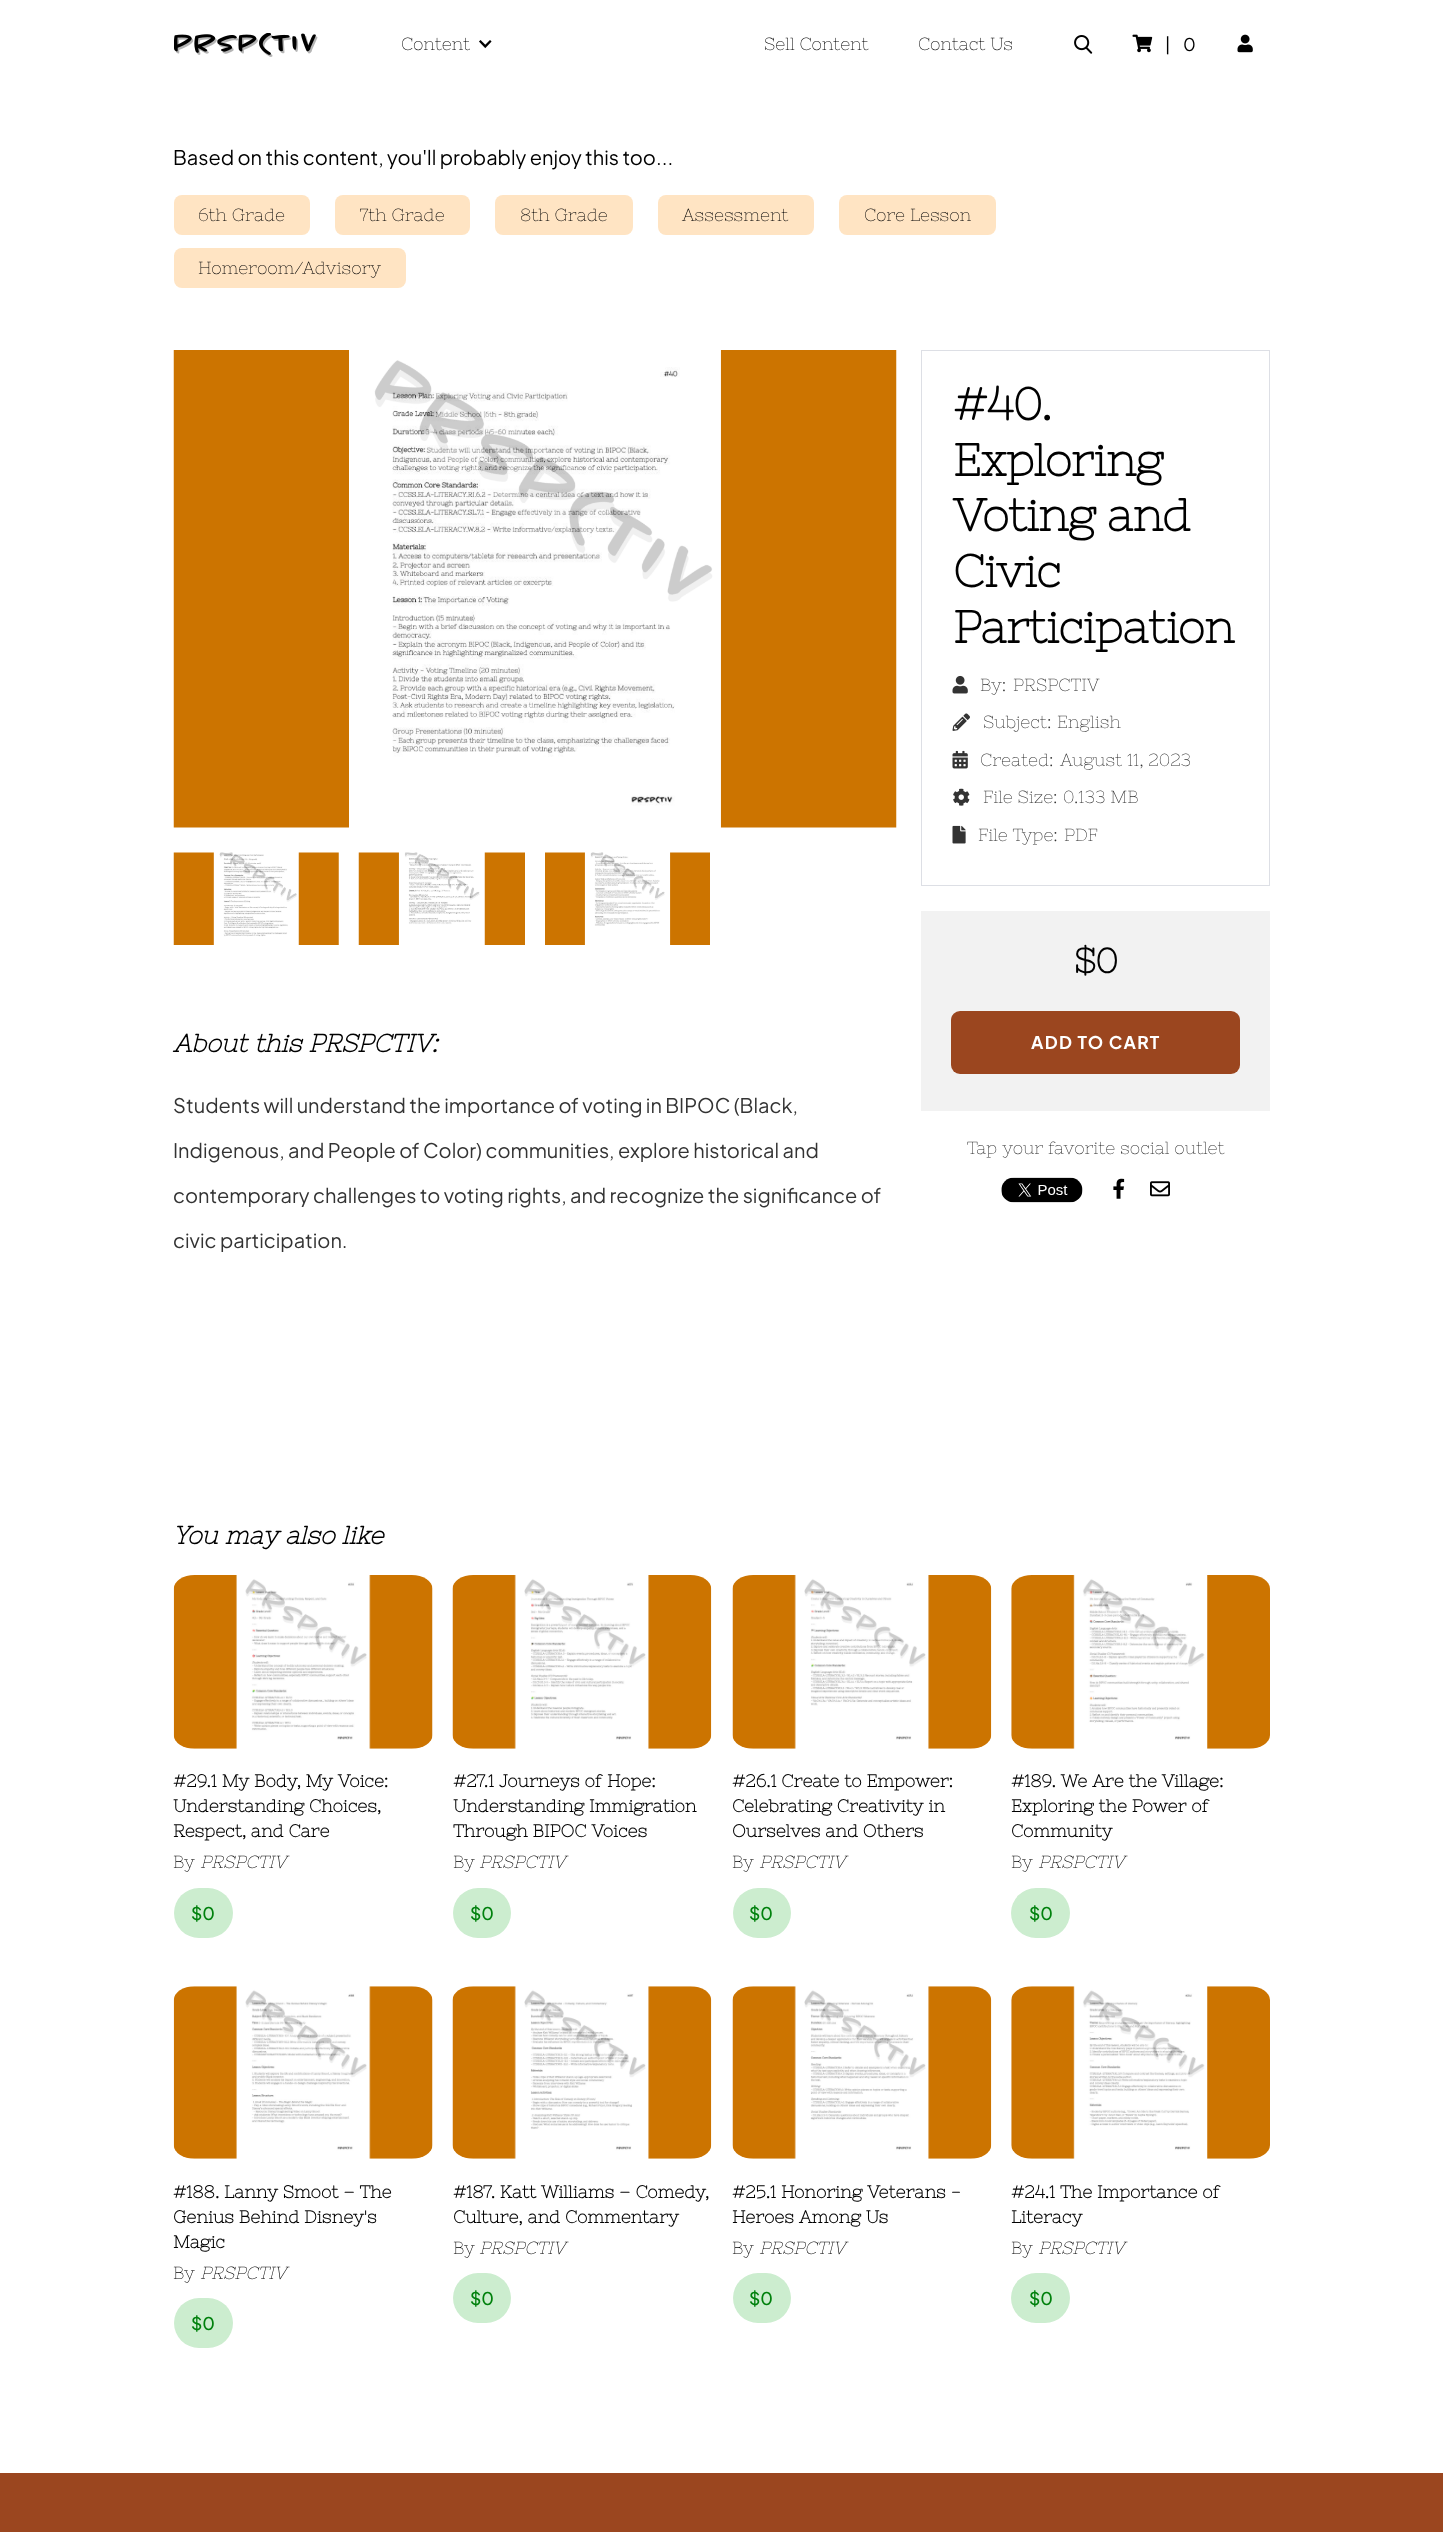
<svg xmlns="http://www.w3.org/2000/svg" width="1443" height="2532">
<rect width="100%" height="100%" fill="#fff"/>
<image x="174" y="33" width="144" height="24" href="media/1.png"/>
<text x="401" y="50" style="font-family:Nixie One;font-size:17.5px;fill:#000">Content</text>
<image x="479" y="40" width="13" height="9" href="media/2.png"/>
<text x="764" y="50" style="font-family:Nixie One;font-size:17.5px;fill:#000">Sell Content</text>
<text x="918" y="50" style="font-family:Nixie One;font-size:17.5px;fill:#000">Contact Us</text>
<image x="1074" y="35" width="19" height="19" href="media/3.png"/>
<image x="1132" y="34" width="21" height="19" href="media/4.png"/>
<text x="1165" y="51" style="font-family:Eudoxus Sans;font-size:17.5px;fill:#000">|</text>
<text x="1183" y="51" style="font-family:Eudoxus Sans;font-size:17.5px;fill:#000">0</text>
<image x="1237" y="34" width="16" height="19" href="media/5.png"/>
<text x="173" y="165" style="font-family:Eudoxus Sans;font-size:20px;fill:#000">Based on this content, you'll probably enjoy this too...</text>
<rect x="174" y="195" width="136" height="40" rx="8" fill="#ffe4c3"/>
<text x="198" y="221" style="font-family:Nixie One;font-size:17.5px;fill:#000">6th Grade</text>
<rect x="335" y="195" width="135" height="40" rx="8" fill="#ffe4c3"/>
<text x="360" y="221" style="font-family:Nixie One;font-size:17.5px;fill:#000">7th Grade</text>
<rect x="495" y="195" width="138" height="40" rx="8" fill="#ffe4c3"/>
<text x="520" y="221" style="font-family:Nixie One;font-size:17.5px;fill:#000">8th Grade</text>
<rect x="658" y="195" width="156" height="40" rx="8" fill="#ffe4c3"/>
<text x="682" y="221" style="font-family:Nixie One;font-size:17.5px;fill:#000">Assessment</text>
<rect x="839" y="195" width="157" height="40" rx="8" fill="#ffe4c3"/>
<text x="864" y="221" style="font-family:Nixie One;font-size:17.5px;fill:#000">Core Lesson</text>
<rect x="174" y="248" width="232" height="40" rx="8" fill="#ffe4c3"/>
<text x="198" y="274" style="font-family:Nixie One;font-size:17.5px;fill:#000">Homeroom/Advisory</text>
<image x="173" y="350" width="724" height="478" href="media/6.png"/>
<image x="173" y="852" width="166" height="93" href="media/7.png"/>
<image x="358" y="852" width="167" height="93" href="media/8.png"/>
<image x="545" y="852" width="165" height="93" href="media/9.png"/>
<text x="173" y="1052" style="font-family:Nixie One;font-size:25px;font-weight:bold;font-style:italic;fill:#000">About this PRSPCTIV:</text>
<text x="173" y="1113" style="font-family:Eudoxus Sans;font-size:20px;fill:#333">Students will understand the importance of voting in BIPOC (Black,</text>
<text x="173" y="1158" style="font-family:Eudoxus Sans;font-size:20px;fill:#333">Indigenous, and People of Color) communities, explore historical and</text>
<text x="173" y="1203" style="font-family:Eudoxus Sans;font-size:20px;fill:#333">contemporary challenges to voting rights, and recognize the significance of</text>
<text x="173" y="1248" style="font-family:Eudoxus Sans;font-size:20px;fill:#333">civic participation.</text>
<rect x="921.5" y="350.5" width="348" height="535" fill="none" stroke="#dddfe5"/>
<text x="953" y="420" style="font-family:Nixie One;font-size:45.5px;font-weight:bold;letter-spacing:-0.6px;fill:#000">#40.</text>
<text x="953" y="476" style="font-family:Nixie One;font-size:45.5px;font-weight:bold;letter-spacing:-0.6px;fill:#000">Exploring</text>
<text x="953" y="531" style="font-family:Nixie One;font-size:45.5px;font-weight:bold;letter-spacing:-0.6px;fill:#000">Voting and</text>
<text x="953" y="587" style="font-family:Nixie One;font-size:45.5px;font-weight:bold;letter-spacing:-0.6px;fill:#000">Civic</text>
<text x="953" y="643" style="font-family:Nixie One;font-size:45.5px;font-weight:bold;letter-spacing:-0.6px;fill:#000">Participation</text>
<image x="952" y="675" width="16" height="19" href="media/10.png"/>
<text x="980" y="691" style="font-family:Nixie One;font-size:17.5px;fill:#333">By:</text>
<text x="1013" y="691" style="font-family:Nixie One;font-size:17.5px;fill:#333">PRSPCTIV</text>
<image x="952" y="713" width="18" height="18" href="media/11.png"/>
<text x="983" y="728" style="font-family:Nixie One;font-size:17.5px;fill:#333">Subject:</text>
<text x="1057" y="728" style="font-family:Nixie One;font-size:17.5px;fill:#333">English</text>
<image x="952" y="750" width="16" height="19" href="media/12.png"/>
<text x="980" y="766" style="font-family:Nixie One;font-size:17.5px;fill:#333">Created:</text>
<text x="1060" y="766" style="font-family:Nixie One;font-size:17.5px;fill:#333">August 11, 2023</text>
<image x="953" y="788" width="17" height="18" href="media/13.png"/>
<text x="983" y="803" style="font-family:Nixie One;font-size:17.5px;fill:#333">File Size:</text>
<text x="1063" y="803" style="font-family:Nixie One;font-size:17.5px;fill:#333">0.133 MB</text>
<image x="952" y="825" width="14" height="19" href="media/14.png"/>
<text x="978" y="841" style="font-family:Nixie One;font-size:17.5px;fill:#333">File Type:</text>
<text x="1064" y="841" style="font-family:Nixie One;font-size:17.5px;fill:#333">PDF</text>
<rect x="921" y="911" width="349" height="200" fill="#f2f2f2"/>
<text x="1074" y="973" style="font-family:Nixie One;font-size:35px;font-weight:bold;letter-spacing:-0.6px;fill:#000">$0</text>
<rect x="951" y="1011" width="289" height="63" rx="9" fill="#9b461f"/>
<text x="1031" y="1049" style="font-family:Eudoxus Sans;font-size:17.5px;font-weight:bold;letter-spacing:1.25px;fill:#fff">ADD TO CART</text>
<text x="967" y="1154" style="font-family:Nixie One;font-size:17.5px;fill:#333">Tap your favorite social outlet</text>
<image x="1001" y="1177" width="82" height="26" href="media/15.png"/>
<image x="1113" y="1178" width="12" height="21" href="media/16.png"/>
<image x="1150" y="1181" width="20" height="16" href="media/17.png"/>
<text x="173" y="1544" style="font-family:Nixie One;font-size:25px;font-weight:bold;font-style:italic;fill:#000">You may also like</text>
<image x="173" y="1575" width="260" height="174" href="media/18.png"/>
<text x="173" y="1787" style="font-family:Nixie One;font-size:17.5px;font-weight:bold;fill:#000">#29.1 My Body, My Voice:</text>
<text x="173" y="1812" style="font-family:Nixie One;font-size:17.5px;font-weight:bold;fill:#000">Understanding Choices,</text>
<text x="173" y="1837" style="font-family:Nixie One;font-size:17.5px;font-weight:bold;fill:#000">Respect, and Care</text>
<text x="173" y="1868" style="font-family:Nixie One;font-size:17.5px;fill:#000">By</text>
<text x="200" y="1868" style="font-family:Nixie One;font-size:17.5px;font-style:italic;fill:#000">PRSPCTIV</text>
<rect x="174" y="1888" width="59" height="50" rx="25" fill="#ccedcf"/>
<text x="191" y="1920" style="font-family:Eudoxus Sans;font-size:17.5px;font-weight:500;fill:#00810d">$0</text>
<image x="452" y="1575" width="260" height="174" href="media/19.png"/>
<text x="453" y="1787" style="font-family:Nixie One;font-size:17.5px;font-weight:bold;fill:#000">#27.1 Journeys of Hope:</text>
<text x="453" y="1812" style="font-family:Nixie One;font-size:17.5px;font-weight:bold;fill:#000">Understanding Immigration</text>
<text x="453" y="1837" style="font-family:Nixie One;font-size:17.5px;font-weight:bold;fill:#000">Through BIPOC Voices</text>
<text x="453" y="1868" style="font-family:Nixie One;font-size:17.5px;fill:#000">By</text>
<text x="479" y="1868" style="font-family:Nixie One;font-size:17.5px;font-style:italic;fill:#000">PRSPCTIV</text>
<rect x="453" y="1888" width="58" height="50" rx="25" fill="#ccedcf"/>
<text x="470" y="1920" style="font-family:Eudoxus Sans;font-size:17.5px;font-weight:500;fill:#00810d">$0</text>
<image x="732" y="1575" width="260" height="174" href="media/20.png"/>
<text x="732" y="1787" style="font-family:Nixie One;font-size:17.5px;font-weight:bold;fill:#000">#26.1 Create to Empower:</text>
<text x="732" y="1812" style="font-family:Nixie One;font-size:17.5px;font-weight:bold;fill:#000">Celebrating Creativity in</text>
<text x="732" y="1837" style="font-family:Nixie One;font-size:17.5px;font-weight:bold;fill:#000">Ourselves and Others</text>
<text x="732" y="1868" style="font-family:Nixie One;font-size:17.5px;fill:#000">By</text>
<text x="759" y="1868" style="font-family:Nixie One;font-size:17.5px;font-style:italic;fill:#000">PRSPCTIV</text>
<rect x="733" y="1888" width="58" height="50" rx="25" fill="#ccedcf"/>
<text x="749" y="1920" style="font-family:Eudoxus Sans;font-size:17.5px;font-weight:500;fill:#00810d">$0</text>
<image x="1011" y="1575" width="259" height="174" href="media/21.png"/>
<text x="1011" y="1787" style="font-family:Nixie One;font-size:17.5px;font-weight:bold;fill:#000">#189. We Are the Village:</text>
<text x="1011" y="1812" style="font-family:Nixie One;font-size:17.5px;font-weight:bold;fill:#000">Exploring the Power of</text>
<text x="1011" y="1837" style="font-family:Nixie One;font-size:17.5px;font-weight:bold;fill:#000">Community</text>
<text x="1011" y="1868" style="font-family:Nixie One;font-size:17.5px;fill:#000">By</text>
<text x="1038" y="1868" style="font-family:Nixie One;font-size:17.5px;font-style:italic;fill:#000">PRSPCTIV</text>
<rect x="1011" y="1888" width="59" height="50" rx="25" fill="#ccedcf"/>
<text x="1029" y="1920" style="font-family:Eudoxus Sans;font-size:17.5px;font-weight:500;fill:#00810d">$0</text>
<image x="173" y="1986" width="260" height="173" href="media/22.png"/>
<text x="173" y="2198" style="font-family:Nixie One;font-size:17.5px;font-weight:bold;fill:#000">#188. Lanny Smoot – The</text>
<text x="173" y="2223" style="font-family:Nixie One;font-size:17.5px;font-weight:bold;fill:#000">Genius Behind Disney's</text>
<text x="173" y="2248" style="font-family:Nixie One;font-size:17.5px;font-weight:bold;fill:#000">Magic</text>
<text x="173" y="2279" style="font-family:Nixie One;font-size:17.5px;fill:#000">By</text>
<text x="200" y="2279" style="font-family:Nixie One;font-size:17.5px;font-style:italic;fill:#000">PRSPCTIV</text>
<rect x="174" y="2298" width="59" height="50" rx="25" fill="#ccedcf"/>
<text x="191" y="2330" style="font-family:Eudoxus Sans;font-size:17.5px;font-weight:500;fill:#00810d">$0</text>
<image x="452" y="1986" width="260" height="173" href="media/23.png"/>
<text x="453" y="2198" style="font-family:Nixie One;font-size:17.5px;font-weight:bold;fill:#000">#187. Katt Williams – Comedy,</text>
<text x="453" y="2223" style="font-family:Nixie One;font-size:17.5px;font-weight:bold;fill:#000">Culture, and Commentary</text>
<text x="453" y="2254" style="font-family:Nixie One;font-size:17.5px;fill:#000">By</text>
<text x="479" y="2254" style="font-family:Nixie One;font-size:17.5px;font-style:italic;fill:#000">PRSPCTIV</text>
<rect x="453" y="2273" width="58" height="50" rx="25" fill="#ccedcf"/>
<text x="470" y="2305" style="font-family:Eudoxus Sans;font-size:17.5px;font-weight:500;fill:#00810d">$0</text>
<image x="732" y="1986" width="260" height="173" href="media/24.png"/>
<text x="732" y="2198" style="font-family:Nixie One;font-size:17.5px;font-weight:bold;fill:#000">#25.1 Honoring Veterans -</text>
<text x="732" y="2223" style="font-family:Nixie One;font-size:17.5px;font-weight:bold;fill:#000">Heroes Among Us</text>
<text x="732" y="2254" style="font-family:Nixie One;font-size:17.5px;fill:#000">By</text>
<text x="759" y="2254" style="font-family:Nixie One;font-size:17.5px;font-style:italic;fill:#000">PRSPCTIV</text>
<rect x="733" y="2273" width="58" height="50" rx="25" fill="#ccedcf"/>
<text x="749" y="2305" style="font-family:Eudoxus Sans;font-size:17.5px;font-weight:500;fill:#00810d">$0</text>
<image x="1011" y="1986" width="259" height="173" href="media/25.png"/>
<text x="1011" y="2198" style="font-family:Nixie One;font-size:17.5px;font-weight:bold;fill:#000">#24.1 The Importance of</text>
<text x="1011" y="2223" style="font-family:Nixie One;font-size:17.5px;font-weight:bold;fill:#000">Literacy</text>
<text x="1011" y="2254" style="font-family:Nixie One;font-size:17.5px;fill:#000">By</text>
<text x="1038" y="2254" style="font-family:Nixie One;font-size:17.5px;font-style:italic;fill:#000">PRSPCTIV</text>
<rect x="1011" y="2273" width="59" height="50" rx="25" fill="#ccedcf"/>
<text x="1029" y="2305" style="font-family:Eudoxus Sans;font-size:17.5px;font-weight:500;fill:#00810d">$0</text>
<rect y="2473" width="1443" height="59" fill="#9b461f"/>
</svg>
